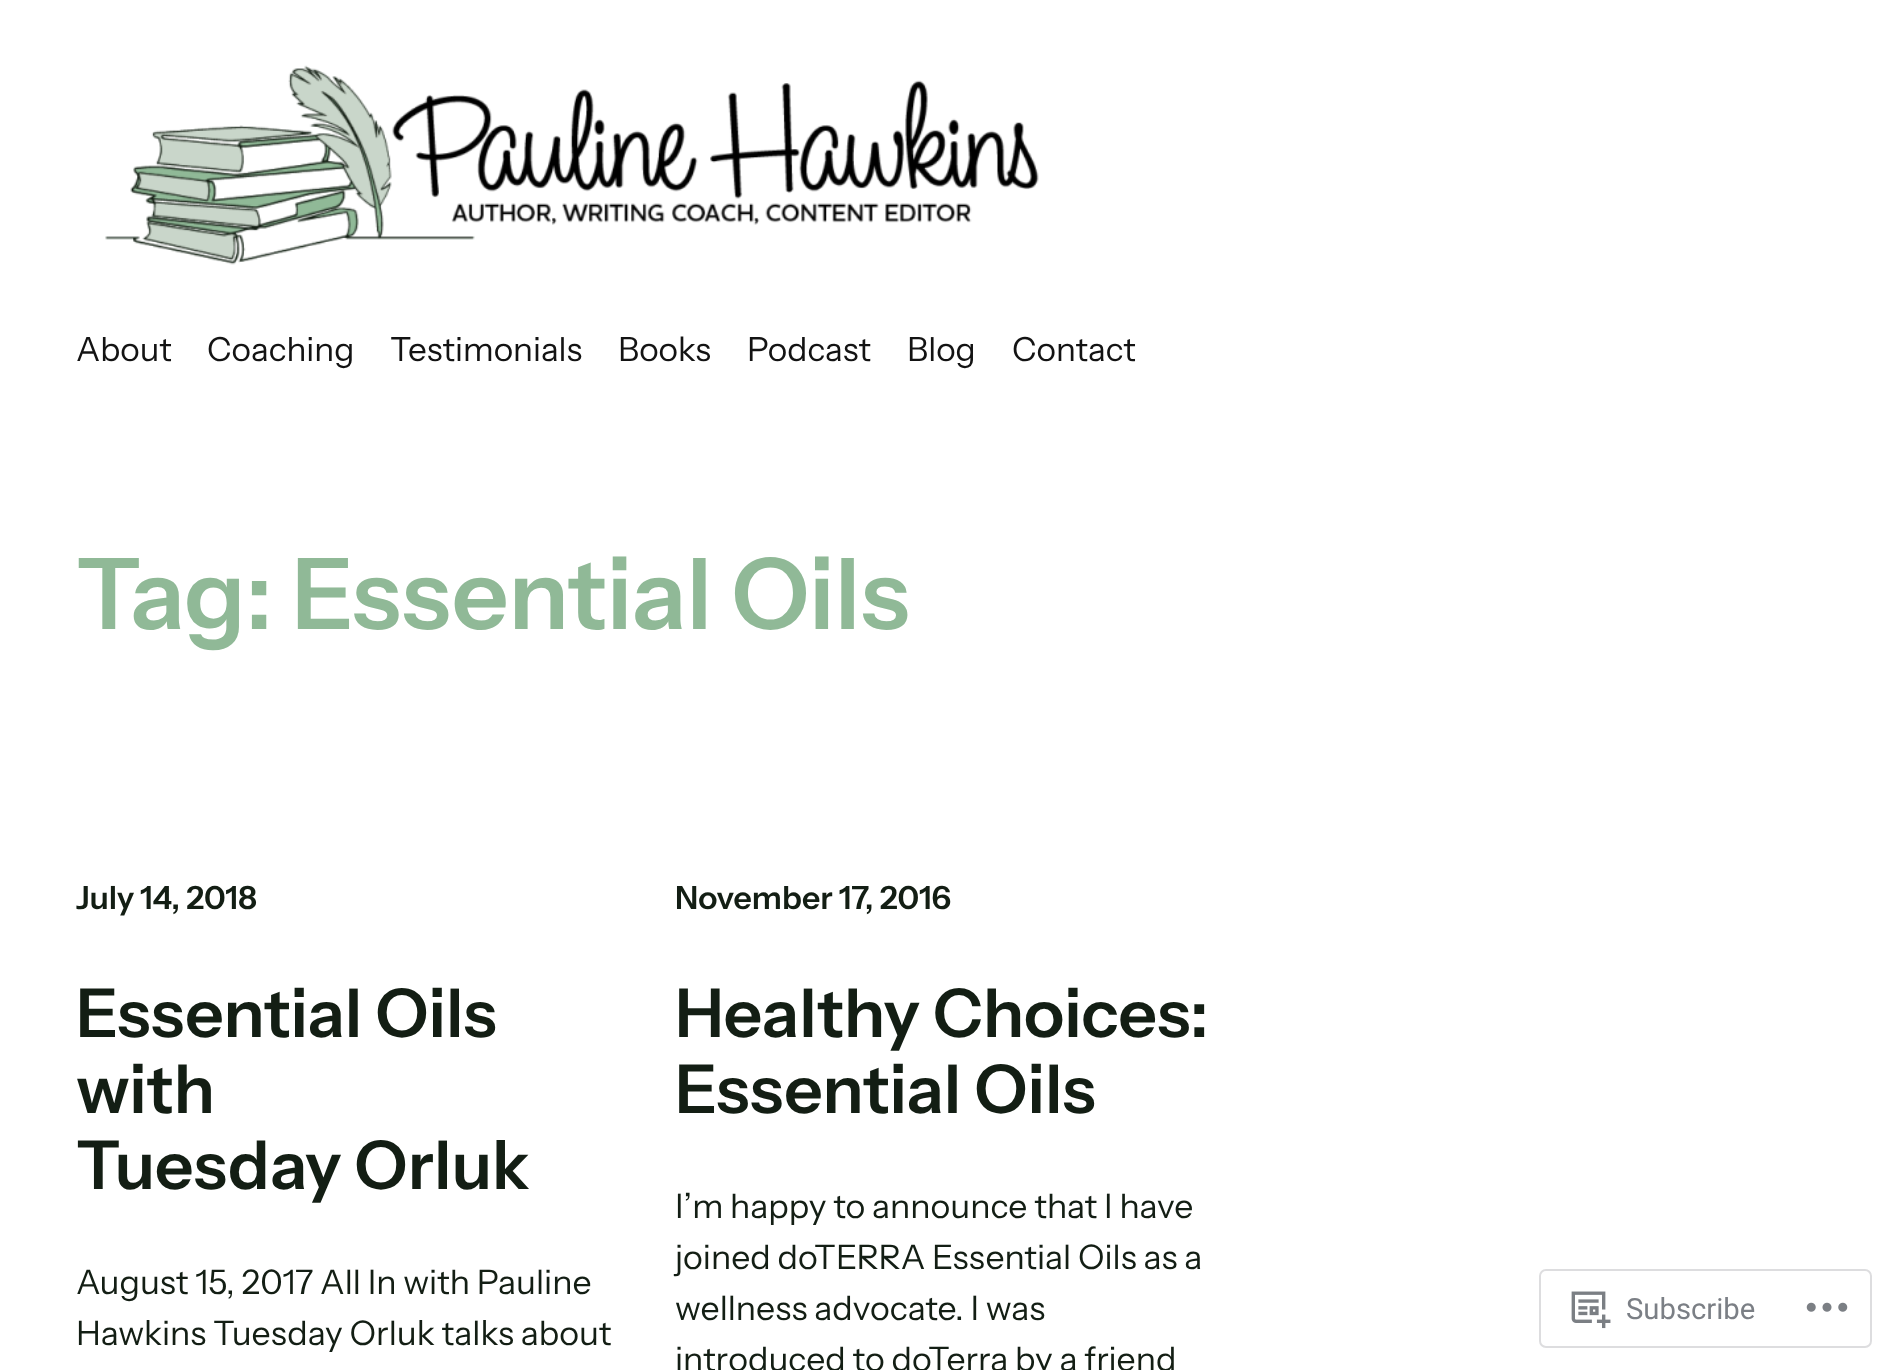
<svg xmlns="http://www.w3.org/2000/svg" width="1893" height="1370">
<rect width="100%" height="100%" fill="#fff"/>
<image x="105" y="65" width="934" height="200" href="media/1.png"/>
<text x="76" y="361" style="font-family:Instrument Sans;font-size:33.25px;fill:#131313">About</text>
<text x="207" y="361" style="font-family:Instrument Sans;font-size:33.25px;fill:#131313">Coaching</text>
<text x="390" y="361" style="font-family:Instrument Sans;font-size:33.25px;fill:#131313">Testimonials</text>
<text x="618" y="361" style="font-family:Instrument Sans;font-size:33.25px;fill:#131313">Books</text>
<text x="747" y="361" style="font-family:Instrument Sans;font-size:33.25px;fill:#131313">Podcast</text>
<text x="907" y="361" style="font-family:Instrument Sans;font-size:33.25px;fill:#131313">Blog</text>
<text x="1012" y="361" style="font-family:Instrument Sans;font-size:33.25px;fill:#131313">Contact</text>
<text x="76" y="629" style="font-family:Instrument Sans;font-size:98.75px;font-weight:600;fill:#90b997">Tag: Essential Oils</text>
<text x="76" y="909" style="font-family:Instrument Sans;font-size:32px;font-weight:600;fill:#131e14">July 14, 2018</text>
<text x="76" y="1037" style="font-family:Instrument Sans;font-size:67.25px;font-weight:600;fill:#131e14">Essential Oils</text>
<text x="76" y="1113" style="font-family:Instrument Sans;font-size:67.25px;font-weight:600;fill:#131e14">with</text>
<text x="76" y="1189" style="font-family:Instrument Sans;font-size:67.25px;font-weight:600;fill:#131e14">Tuesday Orluk</text>
<text x="76" y="1294" style="font-family:Instrument Sans;font-size:33.8px;fill:#131e14">August 15, 2017 All In with Pauline</text>
<text x="76" y="1345" style="font-family:Instrument Sans;font-size:33.8px;fill:#131e14">Hawkins Tuesday Orluk talks about</text>
<text x="675" y="909" style="font-family:Instrument Sans;font-size:32px;font-weight:600;fill:#131e14">November 17, 2016</text>
<text x="675" y="1037" style="font-family:Instrument Sans;font-size:67.25px;font-weight:600;fill:#131e14">Healthy Choices:</text>
<text x="675" y="1113" style="font-family:Instrument Sans;font-size:67.25px;font-weight:600;fill:#131e14">Essential Oils</text>
<text x="675" y="1218" style="font-family:Instrument Sans;font-size:33.8px;fill:#131e14">I’m happy to announce that I have</text>
<text x="675" y="1269" style="font-family:Instrument Sans;font-size:33.8px;fill:#131e14">joined doTERRA Essential Oils as a</text>
<text x="675" y="1320" style="font-family:Instrument Sans;font-size:33.8px;fill:#131e14">wellness advocate. I was</text>
<text x="675" y="1371" style="font-family:Instrument Sans;font-size:33.8px;fill:#131e14">introduced to doTerra by a friend</text>
<rect x="1540" y="1270" width="331" height="77" rx="6" fill="none" stroke="#dddddf" stroke-width="2"/>
<image x="1571" y="1291" width="40" height="38" href="media/2.png"/>
<text x="1626" y="1319" style="font-family:Roboto;font-size:29.25px;fill:#7b7f85">Subscribe</text>
<image x="1806" y="1302" width="42" height="10" href="media/3.png"/>
</svg>
